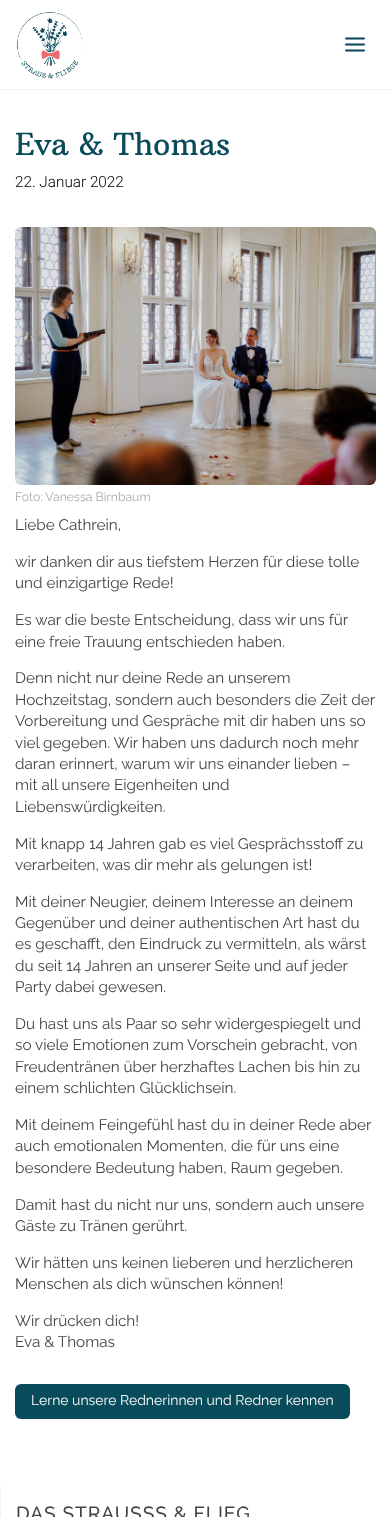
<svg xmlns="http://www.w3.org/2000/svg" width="391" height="1517">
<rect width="100%" height="100%" fill="#fff"/>
<rect y="89" width="391" height="1" fill="#f2f2f2"/>
<image x="16" y="12" width="67" height="67" href="media/1.png"/>
<image x="345" y="37" width="20" height="15" href="media/2.png"/>
<text x="15" y="155" style="font-family:Arbutus Slab;font-size:30.5px;fill:#084b5a">Eva &amp; Thomas</text>
<text x="15" y="187" style="font-family:Roboto;font-size:15.3px;font-weight:300;fill:#000">22. Januar 2022</text>
<image x="15" y="227" width="361" height="258" href="media/3.png"/>
<text x="15" y="501" style="font-family:Raleway;font-size:12.25px;font-weight:100;fill:#aaa">Foto: Vanessa Birnbaum</text>
<text x="15" y="530" style="font-family:Raleway;font-size:15.3px;font-weight:100;fill:#444">Liebe Cathrein,</text>
<text x="15" y="567" style="font-family:Raleway;font-size:15.3px;font-weight:100;fill:#444">wir danken dir aus tiefstem Herzen für diese tolle</text>
<text x="15" y="588" style="font-family:Raleway;font-size:15.3px;font-weight:100;fill:#444">und einzigartige Rede!</text>
<text x="15" y="625" style="font-family:Raleway;font-size:15.3px;font-weight:100;fill:#444">Es war die beste Entscheidung, dass wir uns für</text>
<text x="15" y="647" style="font-family:Raleway;font-size:15.3px;font-weight:100;fill:#444">eine freie Trauung entschieden haben.</text>
<text x="15" y="683" style="font-family:Raleway;font-size:15.3px;font-weight:100;fill:#444">Denn nicht nur deine Rede an unserem</text>
<text x="15" y="705" style="font-family:Raleway;font-size:15.3px;font-weight:100;fill:#444">Hochzeitstag, sondern auch besonders die Zeit der</text>
<text x="15" y="726" style="font-family:Raleway;font-size:15.3px;font-weight:100;fill:#444">Vorbereitung und Gespräche mit dir haben uns so</text>
<text x="15" y="748" style="font-family:Raleway;font-size:15.3px;font-weight:100;fill:#444">viel gegeben. Wir haben uns dadurch noch mehr</text>
<text x="15" y="769" style="font-family:Raleway;font-size:15.3px;font-weight:100;fill:#444">daran erinnert, warum wir uns einander lieben –</text>
<text x="15" y="790" style="font-family:Raleway;font-size:15.3px;font-weight:100;fill:#444">mit all unsere Eigenheiten und</text>
<text x="15" y="812" style="font-family:Raleway;font-size:15.3px;font-weight:100;fill:#444">Liebenswürdigkeiten.</text>
<text x="15" y="849" style="font-family:Raleway;font-size:15.3px;font-weight:100;fill:#444">Mit knapp 14 Jahren gab es viel Gesprächsstoff zu</text>
<text x="15" y="870" style="font-family:Raleway;font-size:15.3px;font-weight:100;fill:#444">verarbeiten, was dir mehr als gelungen ist!</text>
<text x="15" y="907" style="font-family:Raleway;font-size:15.3px;font-weight:100;fill:#444">Mit deiner Neugier, deinem Interesse an deinem</text>
<text x="15" y="928" style="font-family:Raleway;font-size:15.3px;font-weight:100;fill:#444">Gegenüber und deiner authentischen Art hast du</text>
<text x="15" y="949" style="font-family:Raleway;font-size:15.3px;font-weight:100;fill:#444">es geschafft, den Eindruck zu vermitteln, als wärst</text>
<text x="15" y="971" style="font-family:Raleway;font-size:15.3px;font-weight:100;fill:#444">du seit 14 Jahren an unserer Seite und auf jeder</text>
<text x="15" y="992" style="font-family:Raleway;font-size:15.3px;font-weight:100;fill:#444">Party dabei gewesen.</text>
<text x="15" y="1029" style="font-family:Raleway;font-size:15.3px;font-weight:100;fill:#444">Du hast uns als Paar so sehr widergespiegelt und</text>
<text x="15" y="1050" style="font-family:Raleway;font-size:15.3px;font-weight:100;fill:#444">so viele Emotionen zum Vorschein gebracht, von</text>
<text x="15" y="1072" style="font-family:Raleway;font-size:15.3px;font-weight:100;fill:#444">Freudentränen über herzhaftes Lachen bis hin zu</text>
<text x="15" y="1093" style="font-family:Raleway;font-size:15.3px;font-weight:100;fill:#444">einem schlichten Glücklichsein.</text>
<text x="15" y="1130" style="font-family:Raleway;font-size:15.3px;font-weight:100;fill:#444">Mit deinem Feingefühl hast du in deiner Rede aber</text>
<text x="15" y="1151" style="font-family:Raleway;font-size:15.3px;font-weight:100;fill:#444">auch emotionalen Momenten, die für uns eine</text>
<text x="15" y="1173" style="font-family:Raleway;font-size:15.3px;font-weight:100;fill:#444">besondere Bedeutung haben, Raum gegeben.</text>
<text x="15" y="1210" style="font-family:Raleway;font-size:15.3px;font-weight:100;fill:#444">Damit hast du nicht nur uns, sondern auch unsere</text>
<text x="15" y="1231" style="font-family:Raleway;font-size:15.3px;font-weight:100;fill:#444">Gäste zu Tränen gerührt.</text>
<text x="15" y="1268" style="font-family:Raleway;font-size:15.3px;font-weight:100;fill:#444">Wir hätten uns keinen lieberen und herzlicheren</text>
<text x="15" y="1289" style="font-family:Raleway;font-size:15.3px;font-weight:100;fill:#444">Menschen als dich wünschen können!</text>
<text x="15" y="1326" style="font-family:Raleway;font-size:15.3px;font-weight:100;fill:#444">Wir drücken dich!</text>
<text x="15" y="1347" style="font-family:Raleway;font-size:15.3px;font-weight:100;fill:#444">Eva &amp; Thomas</text>
<rect x="15" y="1384" width="335" height="35" rx="6" fill="#084b5a"/>
<text x="31" y="1405" style="font-family:Raleway;font-size:14px;font-weight:100;fill:#fff">Lerne unsere Rednerinnen und Redner kennen</text>
<rect y="1487" width="1" height="30" fill="#f2f2f2"/>
<text x="16" y="1520" style="font-family:'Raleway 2';font-size:19.1px;font-weight:100;letter-spacing:1px;fill:#444">DAS STRAUSSS &amp; FLIEG</text>
</svg>
